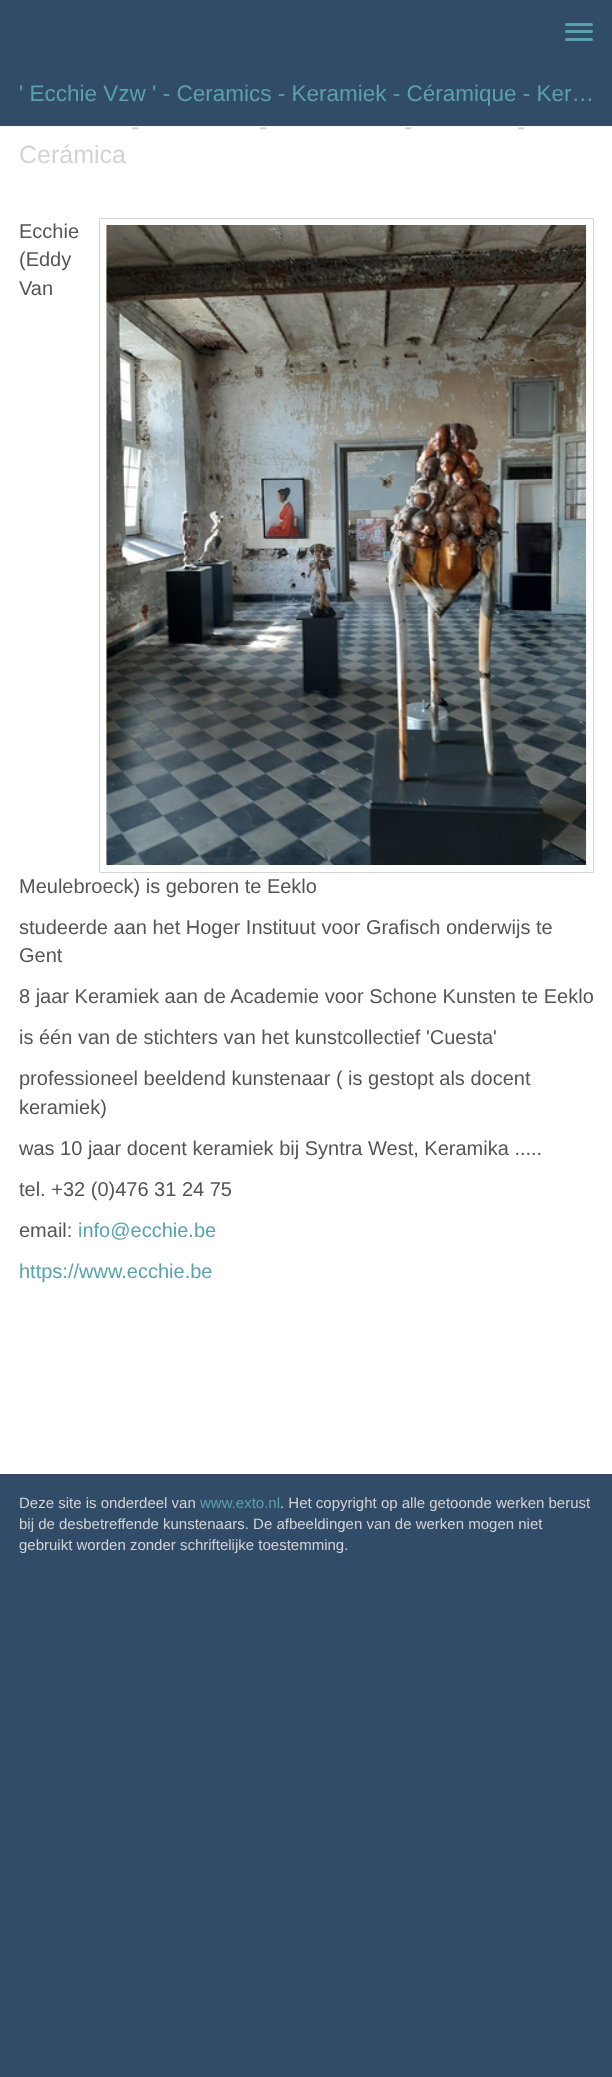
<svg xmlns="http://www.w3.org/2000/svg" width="612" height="2077">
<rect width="100%" height="100%" fill="#314c68"/>
<rect x="565" y="23" width="28" height="3" rx="1.5" fill="#5ba1ac"/>
<rect x="565" y="30" width="28" height="3" rx="1.5" fill="#5ba1ac"/>
<rect x="565" y="38" width="28" height="3" rx="1.5" fill="#5ba1ac"/>
<text x="19" y="101" style="font-family:Liberation Sans;font-size:22.5px;fill:#5ba1ac">' Ecchie Vzw ' - Ceramics - Keramiek - Céramique - Ker…</text>
<rect y="126" width="612" height="1348" fill="#fff"/>
<text x="131" y="135" style="font-family:Liberation Sans;font-size:25px;fill:#d3d3d3">-</text>
<text x="259" y="135" style="font-family:Liberation Sans;font-size:25px;fill:#d3d3d3">-</text>
<text x="404" y="135" style="font-family:Liberation Sans;font-size:25px;fill:#d3d3d3">-</text>
<text x="517" y="135" style="font-family:Liberation Sans;font-size:25px;fill:#d3d3d3">-</text>
<text x="19" y="163" style="font-family:Liberation Sans;font-size:25px;fill:#d3d3d3">Cerámica</text>
<rect x="99.5" y="218.5" width="494" height="654" rx="0.5" fill="none" stroke="#d3d3d3"/>
<image x="106" y="225" width="481" height="640" href="media/1.png"/>
<text x="19" y="238" style="font-family:Liberation Sans;font-size:20px;fill:#555">Ecchie</text>
<text x="19" y="266" style="font-family:Liberation Sans;font-size:20px;fill:#555">(Eddy</text>
<text x="19" y="295" style="font-family:Liberation Sans;font-size:20px;fill:#555">Van</text>
<text x="19" y="893" style="font-family:Liberation Sans;font-size:20px;fill:#555">Meulebroeck) is geboren te Eeklo</text>
<text x="19" y="934" style="font-family:Liberation Sans;font-size:20px;fill:#555">studeerde aan het Hoger Instituut voor Grafisch onderwijs te</text>
<text x="19" y="962" style="font-family:Liberation Sans;font-size:20px;fill:#555">Gent</text>
<text x="19" y="1003" style="font-family:Liberation Sans;font-size:20px;fill:#555">8 jaar Keramiek aan de Academie voor Schone Kunsten te Eeklo</text>
<text x="19" y="1044" style="font-family:Liberation Sans;font-size:20px;fill:#555">is één van de stichters van het kunstcollectief 'Cuesta'</text>
<text x="19" y="1085" style="font-family:Liberation Sans;font-size:20px;fill:#555">professioneel beeldend kunstenaar ( is gestopt als docent</text>
<text x="19" y="1114" style="font-family:Liberation Sans;font-size:20px;fill:#555">keramiek)</text>
<text x="19" y="1155" style="font-family:Liberation Sans;font-size:20px;fill:#555">was 10 jaar docent keramiek bij Syntra West, Keramika .....</text>
<text x="19" y="1196" style="font-family:Liberation Sans;font-size:20px;fill:#555">tel. +32 (0)476 31 24 75</text>
<text x="19" y="1237" style="font-family:Liberation Sans;font-size:20px;fill:#555">email:</text>
<text x="78" y="1237" style="font-family:Liberation Sans;font-size:20px;fill:#5ba1ac">info@ecchie.be</text>
<text x="19" y="1278" style="font-family:Liberation Sans;font-size:20px;fill:#5ba1ac">https://www.ecchie.be</text>
<text x="19" y="1508" style="font-family:Liberation Sans;font-size:15px;fill:#d3d3d3">Deze site is onderdeel van</text>
<text x="200" y="1508" style="font-family:Liberation Sans;font-size:15px;fill:#5ba1ac">www.exto.nl</text>
<text x="280" y="1508" style="font-family:Liberation Sans;font-size:15px;fill:#d3d3d3">. Het copyright op alle getoonde werken berust</text>
<text x="19" y="1529" style="font-family:Liberation Sans;font-size:15px;fill:#d3d3d3">bij de desbetreffende kunstenaars. De afbeeldingen van de werken mogen niet</text>
<text x="19" y="1550" style="font-family:Liberation Sans;font-size:15px;fill:#d3d3d3">gebruikt worden zonder schriftelijke toestemming.</text>
</svg>
